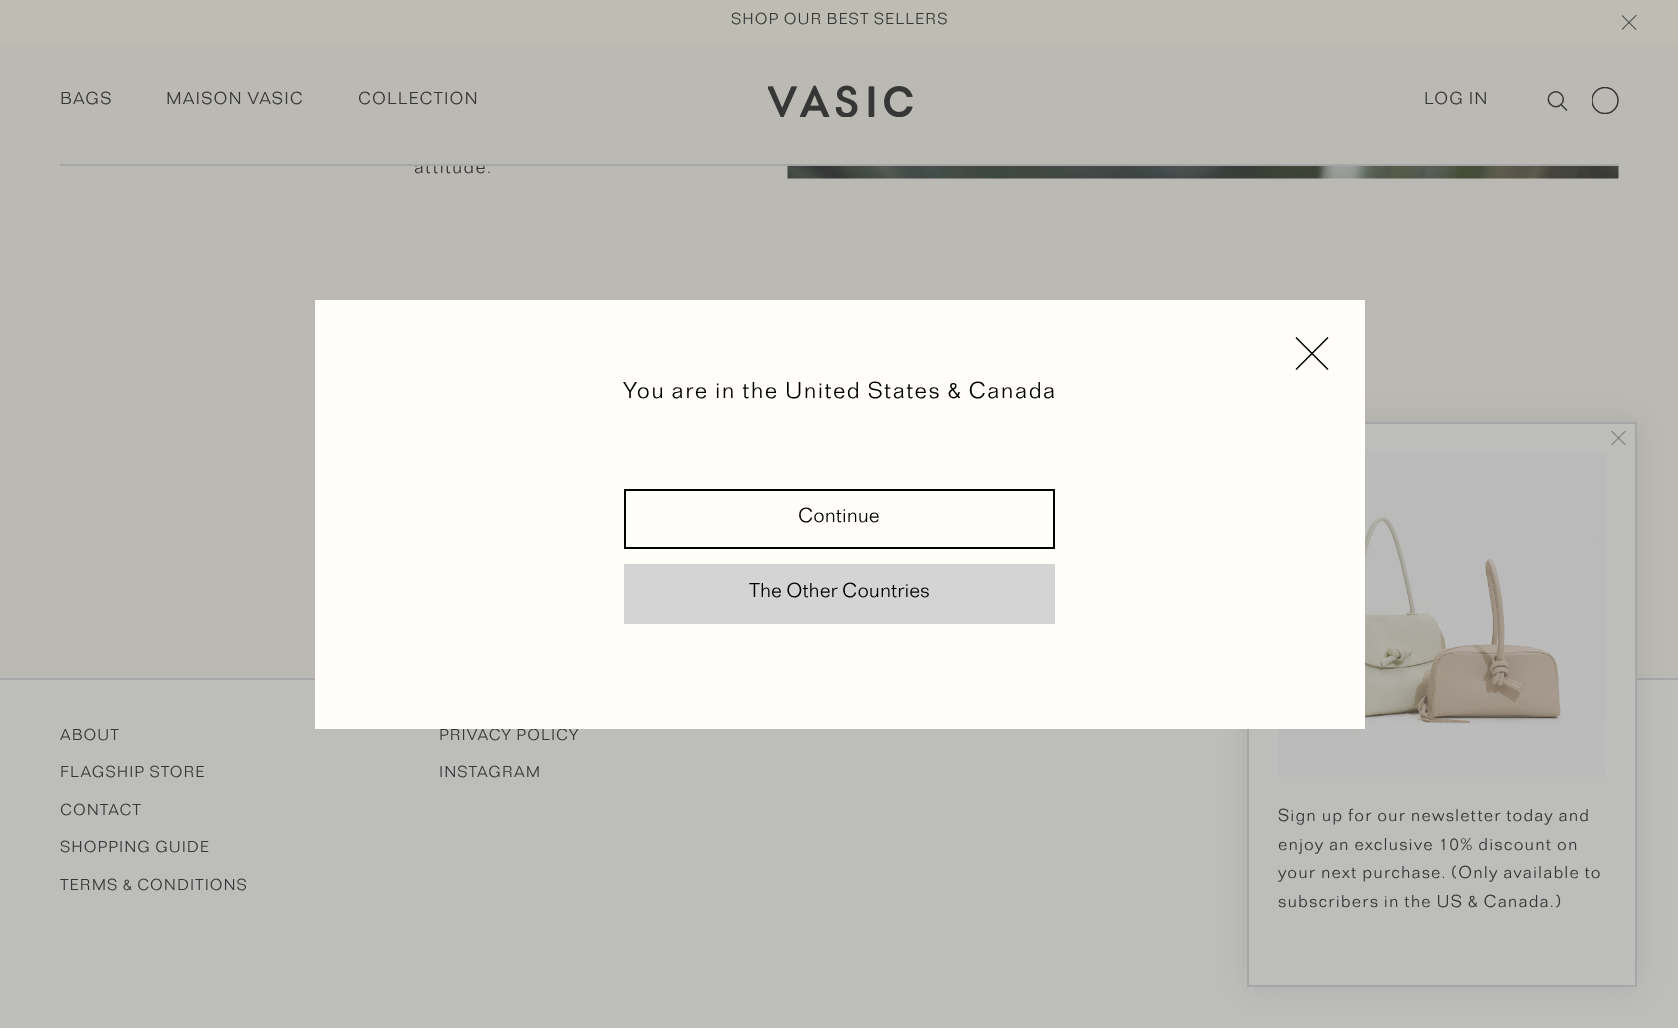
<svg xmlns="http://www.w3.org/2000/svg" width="1678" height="1028">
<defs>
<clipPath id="clip1"><rect x="1592" y="87" width="27" height="27"/></clipPath>
</defs>
<rect width="100%" height="100%" fill="#bbb9b3"/>
<rect width="1678" height="45" fill="#bdbdb3"/>
<text x="731" y="24" style="font-family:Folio;font-size:16.5px;font-weight:300;letter-spacing:1px;fill:#363636">SHOP OUR BEST SELLERS</text>
<image x="1622" y="15" width="15" height="15" href="media/1.png"/>
<text x="414" y="173" style="font-family:Folio;font-size:19.5px;font-weight:300;letter-spacing:1.25px;fill:#363636">attitude.</text>
<rect x="416" y="160" width="67" height="5" fill="#bbb9b3"/>
<rect x="60" y="164" width="1559" height="2" fill="#a6a6a6"/>
<image x="768" y="85" width="145" height="32" href="media/2.png"/>
<text x="60" y="104" style="font-family:Folio;font-size:18px;font-weight:300;letter-spacing:1.1px;fill:#363636">BAGS</text>
<text x="166" y="104" style="font-family:Folio;font-size:18px;font-weight:300;letter-spacing:1.1px;fill:#363636">MAISON VASIC</text>
<text x="358" y="104" style="font-family:Folio;font-size:18px;font-weight:300;letter-spacing:1.1px;fill:#363636">COLLECTION</text>
<text x="1424" y="104" style="font-family:Folio;font-size:18px;font-weight:300;letter-spacing:1.1px;fill:#363636">LOG IN</text>
<path d="M1550.5 94c7-7 17.5 3.5 10.5 10.5c-6.5 7-17.5-3.5-10.5-10.5zm10.5 10.5l6 6" fill="none" stroke="#363636" stroke-width="1.5"/>
<g clip-path="url(#clip1)">
<circle cx="1605" cy="100.5" r="13" fill="none" stroke="#363636" stroke-width="1.5"/>
</g>
<image x="787" y="166" width="832" height="13" href="media/3.png"/>
<rect y="680" width="1678" height="348" fill="#bdbdbb"/>
<rect y="678" width="1678" height="2" fill="#a6a6a6"/>
<text x="439" y="740" style="font-family:Folio;font-size:16.5px;font-weight:300;letter-spacing:1px;fill:#363636">PRIVACY POLICY</text>
<rect x="1247" y="422" width="390" height="565" fill="#3636361c" filter="blur(15px)"/>
<rect x="1248" y="423" width="388" height="563" fill="#bdbdbb" stroke="#a6a6a6" stroke-width="2"/>
<image x="1278" y="453" width="327" height="324" href="media/4.png"/>
<rect x="315" y="300" width="1050" height="429" fill="#fffefa"/>
<path d="M1296 337.5l32 32m0-32l-32 32" fill="none" stroke="#000" stroke-width="1.5"/>
<text x="623" y="398" style="font-family:Folio;font-size:24px;font-weight:300;letter-spacing:1.45px;fill:#000">You are in the United States &amp; Canada</text>
<rect x="625" y="490" width="429" height="58" fill="none" stroke="#000" stroke-width="2"/>
<text x="798" y="522" style="font-family:Folio;font-size:21px;font-weight:300;fill:#000">Continue</text>
<rect x="624" y="564" width="431" height="60" fill="#d4d4d4"/>
<text x="749" y="597" style="font-family:Folio;font-size:21px;font-weight:300;fill:#000">The Other Countries</text>
<text x="60" y="740" style="font-family:Folio;font-size:16.5px;font-weight:300;letter-spacing:1px;fill:#363636">ABOUT</text>
<text x="60" y="777" style="font-family:Folio;font-size:16.5px;font-weight:300;letter-spacing:1px;fill:#363636">FLAGSHIP STORE</text>
<text x="439" y="777" style="font-family:Folio;font-size:16.5px;font-weight:300;letter-spacing:1px;fill:#363636">INSTAGRAM</text>
<text x="60" y="815" style="font-family:Folio;font-size:16.5px;font-weight:300;letter-spacing:1px;fill:#363636">CONTACT</text>
<text x="60" y="852" style="font-family:Folio;font-size:16.5px;font-weight:300;letter-spacing:1px;fill:#363636">SHOPPING GUIDE</text>
<text x="60" y="890" style="font-family:Folio;font-size:16.5px;font-weight:300;letter-spacing:1px;fill:#363636">TERMS &amp; CONDITIONS</text>
<path d="M1611.5 431l14 14m0-14l-14 14" fill="none" stroke="#363636" stroke-width="0.7"/>
<text x="1278" y="821" style="font-family:Folio;font-size:18px;font-weight:300;letter-spacing:1.1px;fill:#363636">Sign up for our newsletter today and</text>
<text x="1278" y="850" style="font-family:Folio;font-size:18px;font-weight:300;letter-spacing:1.1px;fill:#363636">enjoy an exclusive 10% discount on</text>
<text x="1278" y="878" style="font-family:Folio;font-size:18px;font-weight:300;letter-spacing:1.1px;fill:#363636">your next purchase. (Only available to</text>
<text x="1278" y="907" style="font-family:Folio;font-size:18px;font-weight:300;letter-spacing:1.1px;fill:#363636">subscribers in the US &amp; Canada.)</text>
</svg>
